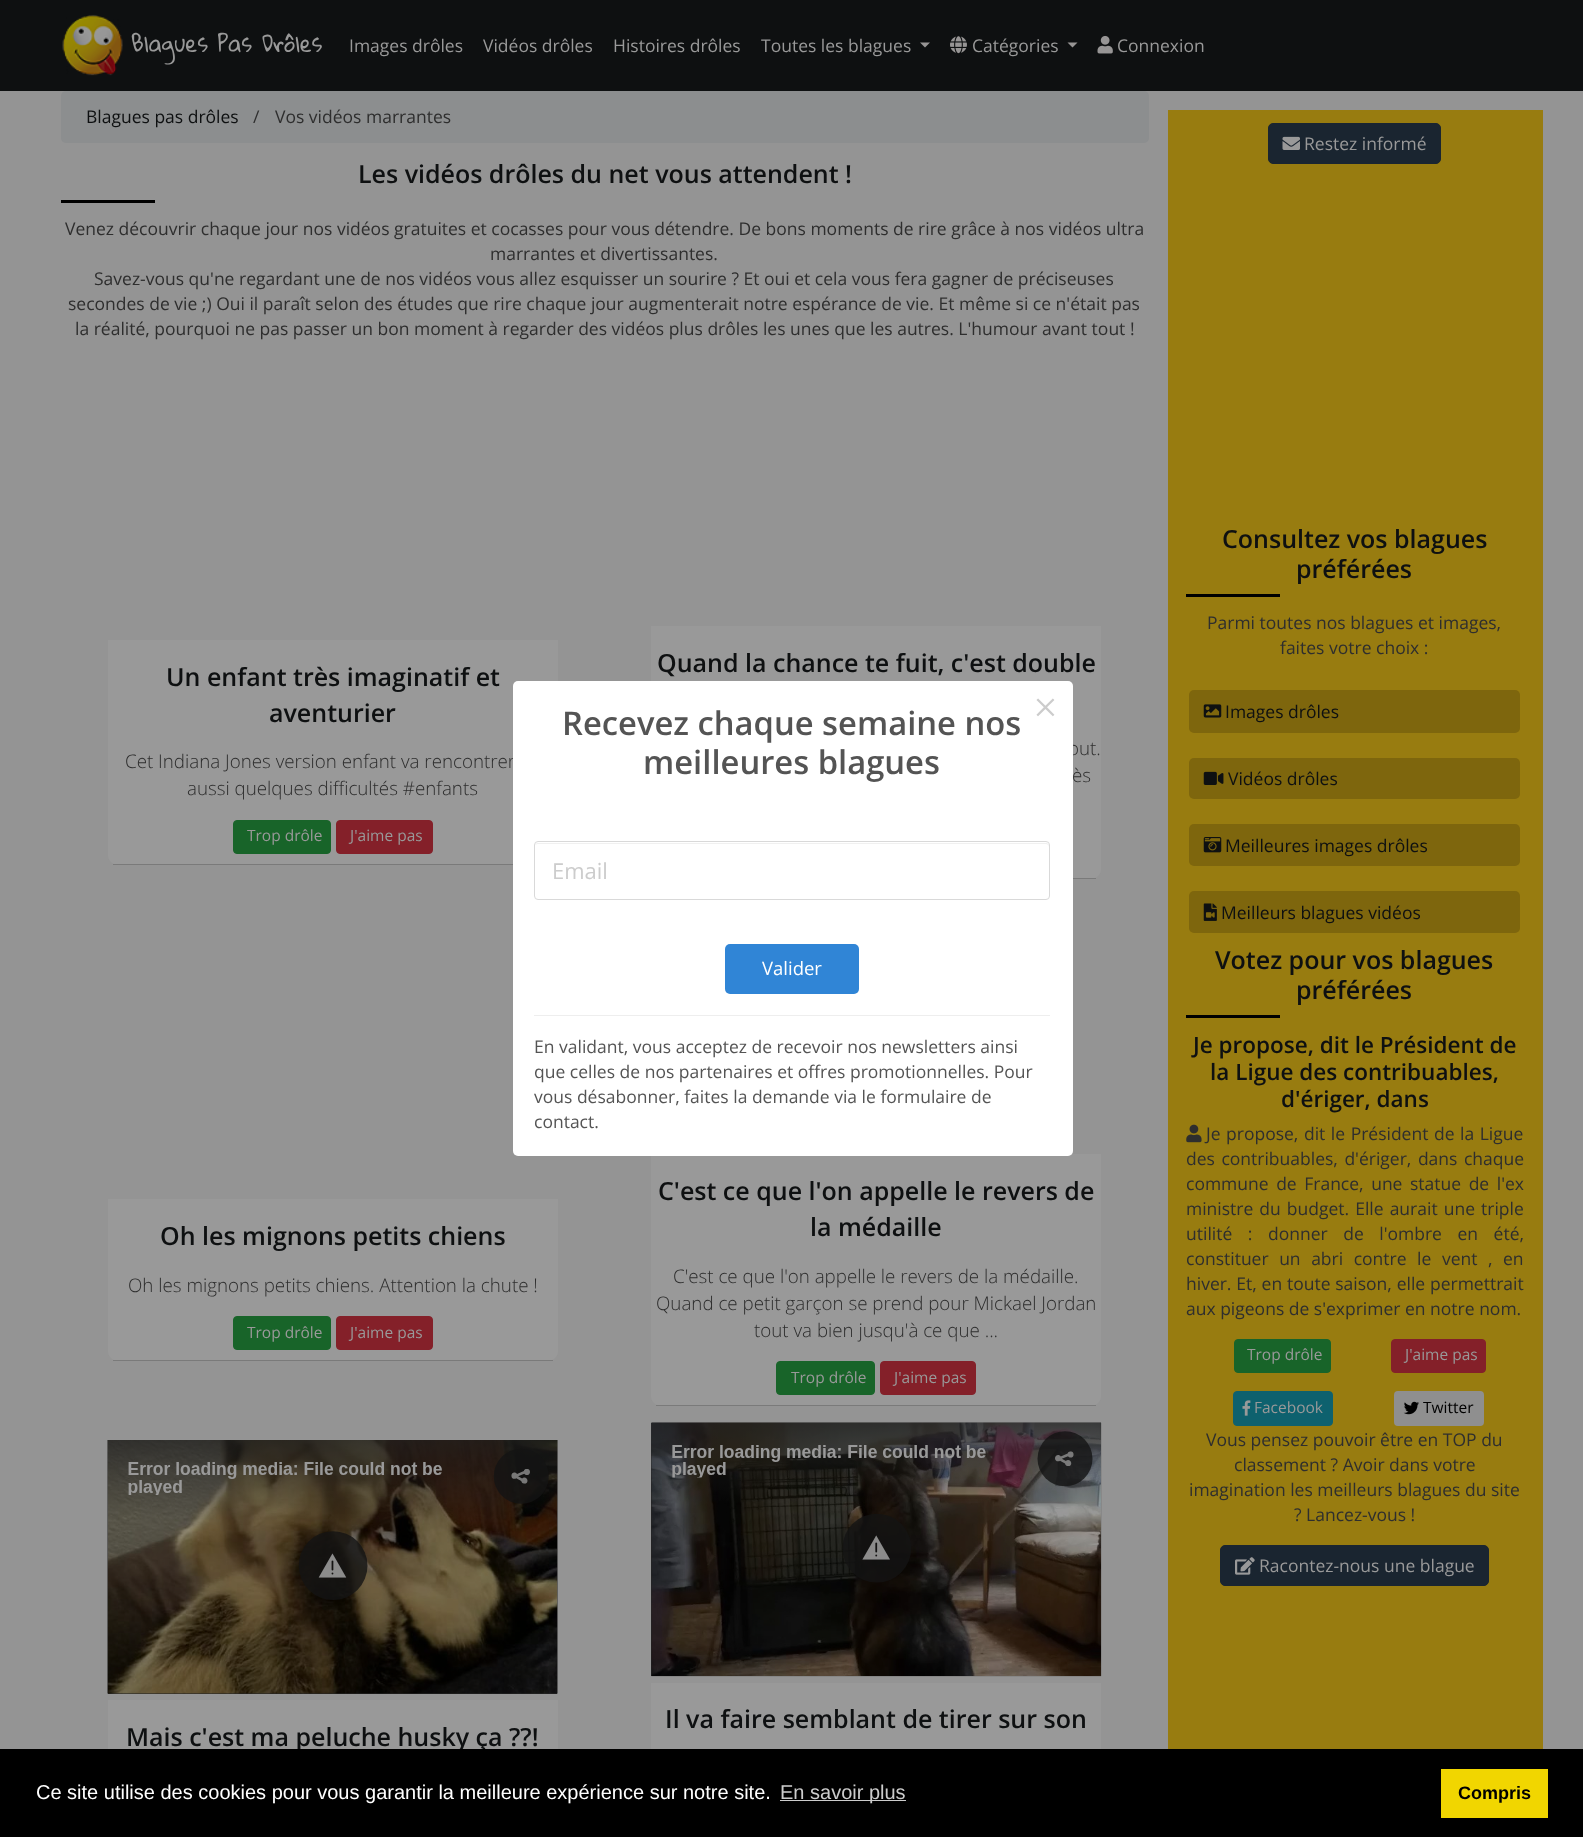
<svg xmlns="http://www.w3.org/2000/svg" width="1583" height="1837">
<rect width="100%" height="100%" fill="#949494"/>
<rect width="1583" height="91" fill="#0e1011"/>
<image x="62" y="14" width="61" height="62" href="media/1.png"/>
<text x="131" y="52" style="font-family:Gloria Hallelujah;font-size:21.9px;fill:#999">Blagues Pas Drôles</text>
<text x="349" y="52" style="font-family:Open Sans;font-size:17.5px;fill:#999">Images drôles</text>
<text x="483" y="52" style="font-family:Open Sans;font-size:17.5px;fill:#999">Vidéos drôles</text>
<text x="613" y="52" style="font-family:Open Sans;font-size:17.5px;fill:#999">Histoires drôles</text>
<text x="761" y="52" style="font-family:Open Sans;font-size:17.5px;fill:#999">Toutes les blagues</text>
<path d="M920 42.5h10l-5 5z" fill="#979595"/>
<image x="950" y="36" width="17" height="18" href="media/2.png"/>
<text x="972" y="52" style="font-family:Open Sans;font-size:17.5px;fill:#999">Catégories</text>
<path d="M1067.5 42.5h10l-5 5z" fill="#979595"/>
<image x="1097" y="35" width="16" height="19" href="media/3.png"/>
<text x="1117" y="52" style="font-family:Open Sans;font-size:17.5px;fill:#999">Connexion</text>
<rect x="61" y="91" width="1088" height="52" rx="5" fill="#8c8e8f"/>
<text x="86" y="123" style="font-family:Open Sans;font-size:17.5px;fill:#0e1011">Blagues pas drôles</text>
<text x="253" y="123" style="font-family:Open Sans;font-size:17.5px;fill:#2e2e2e">/</text>
<text x="275" y="123" style="font-family:Open Sans;font-size:17.5px;fill:#2e2e2e">Vos vidéos marrantes</text>
<text x="358" y="183" style="font-family:Open Sans;font-size:25px;font-weight:600;fill:#0e1011">Les vidéos drôles du net vous attendent !</text>
<rect x="61" y="200" width="94" height="3" fill="#000"/>
<text x="65" y="235" style="font-family:Open Sans;font-size:17.5px;fill:#2e2e2e">Venez découvrir chaque jour nos vidéos gratuites et cocasses pour vous détendre. De bons moments de rire grâce à nos vidéos ultra</text>
<text x="490" y="260" style="font-family:Open Sans;font-size:17.5px;fill:#2e2e2e">marrantes et divertissantes.</text>
<text x="94" y="285" style="font-family:Open Sans;font-size:17.5px;fill:#2e2e2e">Savez-vous qu'ne regardant une de nos vidéos vous allez esquisser un sourire ? Et oui et cela vous fera gagner de préciseuses</text>
<text x="68" y="310" style="font-family:Open Sans;font-size:17.5px;fill:#2e2e2e">secondes de vie ;) Oui il paraît selon des études que rire chaque jour augmenterait notre espérance de vie. Et même si ce n'était pas</text>
<text x="75" y="335" style="font-family:Open Sans;font-size:17.5px;fill:#2e2e2e">la réalité, pourquoi ne pas passer un bon moment à regarder des vidéos plus drôles les unes que les autres. L'humour avant tout !</text>
<path d="M108 640h450v215c0 5.5-4.5 10-10 10h-430c-5.5 0-10-4.5-10-10z" fill="#999"/>
<rect x="113" y="864" width="400" height="1" fill="#7a7a7a"/>
<text x="166" y="686" style="font-family:Open Sans;font-size:25px;font-weight:600;fill:#0e1011">Un enfant très imaginatif et</text>
<text x="269" y="722" style="font-family:Open Sans;font-size:25px;font-weight:600;fill:#0e1011">aventurier</text>
<text x="125" y="768" style="font-family:Open Sans;font-size:18.75px;font-weight:300;fill:#2e2e2e">Cet Indiana Jones version enfant va rencontrer</text>
<text x="187" y="795" style="font-family:Open Sans;font-size:18.75px;font-weight:300;fill:#2e2e2e">aussi quelques difficultés #enfants</text>
<rect x="233.5" y="820.5" width="97" height="33" rx="3.5" fill="#186429" stroke="#186429"/>
<text x="247" y="841" style="font-family:Open Sans;font-size:15.5px;fill:#999">Trop drôle</text>
<rect x="336.5" y="820.5" width="96" height="33" rx="3.5" fill="#842029" stroke="#842029"/>
<text x="350" y="841" style="font-family:Open Sans;font-size:15.5px;fill:#999">J'aime pas</text>
<path d="M651 626h450v243c0 5.5-4.5 10-10 10h-430c-5.5 0-10-4.5-10-10z" fill="#999"/>
<rect x="1073" y="878" width="23" height="1" fill="#7a7a7a"/>
<text x="657" y="672" style="font-family:Open Sans;font-size:25px;font-weight:600;fill:#0e1011">Quand la chance te fuit, c'est double</text>
<text x="1068" y="755" style="font-family:Open Sans;font-size:18.75px;font-weight:300;fill:#2e2e2e">out.</text>
<text x="1072" y="782" style="font-family:Open Sans;font-size:18.75px;font-weight:300;fill:#2e2e2e">ès</text>
<path d="M108 1199h450v152c0 5.5-4.5 10-10 10h-430c-5.5 0-10-4.5-10-10z" fill="#999"/>
<rect x="113" y="1360" width="440" height="1" fill="#7a7a7a"/>
<text x="160" y="1245" style="font-family:Open Sans;font-size:25px;font-weight:600;fill:#0e1011">Oh les mignons petits chiens</text>
<text x="128" y="1292" style="font-family:Open Sans;font-size:18.75px;font-weight:300;fill:#2e2e2e">Oh les mignons petits chiens. Attention la chute !</text>
<rect x="233.5" y="1316.5" width="97" height="33" rx="3.5" fill="#186429" stroke="#186429"/>
<text x="247" y="1338" style="font-family:Open Sans;font-size:15.5px;fill:#999">Trop drôle</text>
<rect x="336.5" y="1316.5" width="96" height="33" rx="3.5" fill="#842029" stroke="#842029"/>
<text x="350" y="1338" style="font-family:Open Sans;font-size:15.5px;fill:#999">J'aime pas</text>
<path d="M651 1154h450v242c0 5.5-4.5 10-10 10h-430c-5.5 0-10-4.5-10-10z" fill="#999"/>
<rect x="656" y="1405" width="440" height="1" fill="#7a7a7a"/>
<text x="658" y="1200" style="font-family:Open Sans;font-size:25px;font-weight:600;fill:#0e1011">C'est ce que l'on appelle le revers de</text>
<text x="810" y="1236" style="font-family:Open Sans;font-size:25px;font-weight:600;fill:#0e1011">la médaille</text>
<text x="673" y="1283" style="font-family:Open Sans;font-size:18.75px;font-weight:300;fill:#2e2e2e">C'est ce que l'on appelle le revers de la médaille.</text>
<text x="656" y="1310" style="font-family:Open Sans;font-size:18.75px;font-weight:300;fill:#2e2e2e">Quand ce petit garçon se prend pour Mickael Jordan</text>
<text x="754" y="1337" style="font-family:Open Sans;font-size:18.75px;font-weight:300;fill:#2e2e2e">tout va bien jusqu'à ce que ...</text>
<rect x="776.5" y="1361.5" width="98" height="33" rx="3.5" fill="#186429" stroke="#186429"/>
<text x="791" y="1383" style="font-family:Open Sans;font-size:15.5px;fill:#999">Trop drôle</text>
<rect x="880.5" y="1361.5" width="95" height="33" rx="3.5" fill="#842029" stroke="#842029"/>
<text x="894" y="1383" style="font-family:Open Sans;font-size:15.5px;fill:#999">J'aime pas</text>
<image x="651" y="1422" width="451" height="255" href="media/4.png"/>
<rect x="651" y="1683" width="450" height="66" fill="#999"/>
<text x="665" y="1728" style="font-family:Open Sans;font-size:25px;font-weight:600;fill:#0e1011">Il va faire semblant de tirer sur son</text>
<image x="107" y="1440" width="451" height="254" href="media/5.png"/>
<rect x="108" y="1700" width="450" height="49" fill="#999"/>
<text x="126" y="1746" style="font-family:Open Sans;font-size:25px;font-weight:600;fill:#0e1011">Mais c'est ma peluche husky ça ??!</text>
<rect x="1168" y="110" width="375" height="1639" fill="#987c10"/>
<rect x="1268.5" y="123.5" width="172" height="40" rx="4.5" fill="#1a2530" stroke="#1a2530"/>
<image x="1282" y="136" width="18" height="14" href="media/6.png"/>
<text x="1304" y="150" style="font-family:Open Sans;font-size:17.5px;fill:#999">Restez informé</text>
<text x="1222" y="548" style="font-family:Open Sans;font-size:25px;font-weight:600;fill:#0e1011">Consultez vos blagues</text>
<text x="1296" y="578" style="font-family:Open Sans;font-size:25px;font-weight:600;fill:#0e1011">préférées</text>
<rect x="1186" y="594" width="94" height="3" fill="#000"/>
<text x="1207" y="629" style="font-family:Open Sans;font-size:17.5px;fill:#2e2e2e">Parmi toutes nos blagues et images,</text>
<text x="1280" y="654" style="font-family:Open Sans;font-size:17.5px;fill:#2e2e2e">faites votre choix :</text>
<rect x="1189" y="690" width="331" height="43" rx="5" fill="#7e660d"/>
<image x="1203" y="704" width="19" height="14" href="media/7.png"/>
<text x="1225" y="718" style="font-family:Open Sans;font-size:17.5px;fill:#0e1011">Images drôles</text>
<rect x="1189" y="758" width="331" height="41" rx="5" fill="#7e660d"/>
<image x="1203" y="771" width="21" height="14" href="media/8.png"/>
<text x="1228" y="785" style="font-family:Open Sans;font-size:17.5px;fill:#0e1011">Vidéos drôles</text>
<rect x="1189" y="824" width="331" height="42" rx="5" fill="#7e660d"/>
<image x="1203" y="837" width="19" height="16" href="media/9.png"/>
<text x="1225" y="852" style="font-family:Open Sans;font-size:17.5px;fill:#0e1011">Meilleures images drôles</text>
<rect x="1189" y="891" width="331" height="42" rx="5" fill="#7e660d"/>
<image x="1203" y="903" width="14" height="18" href="media/10.png"/>
<text x="1221" y="919" style="font-family:Open Sans;font-size:17.5px;fill:#0e1011">Meilleurs blagues vidéos</text>
<text x="1215" y="969" style="font-family:Open Sans;font-size:25px;font-weight:600;fill:#0e1011">Votez pour vos blagues</text>
<text x="1296" y="999" style="font-family:Open Sans;font-size:25px;font-weight:600;fill:#0e1011">préférées</text>
<rect x="1186" y="1015" width="94" height="3" fill="#000"/>
<text x="1193" y="1053" style="font-family:Open Sans;font-size:22.5px;font-weight:600;fill:#0e1011">Je propose, dit le Président de</text>
<text x="1210" y="1080" style="font-family:Open Sans;font-size:22.5px;font-weight:600;fill:#0e1011">la Ligue des contribuables,</text>
<text x="1281" y="1107" style="font-family:Open Sans;font-size:22.5px;font-weight:600;fill:#0e1011">d'ériger, dans</text>
<image x="1186" y="1124" width="16" height="19" href="media/11.png"/>
<text x="1206" y="1140" word-spacing="1" style="font-family:Open Sans;font-size:17.5px;fill:#2e2e2e">Je propose, dit le Président de la Ligue</text>
<text x="1186" y="1165" word-spacing="2" style="font-family:Open Sans;font-size:17.5px;fill:#2e2e2e">des contribuables, d'ériger, dans chaque</text>
<text x="1186" y="1190" word-spacing="3" style="font-family:Open Sans;font-size:17.5px;fill:#2e2e2e">commune de France, une statue de l'ex</text>
<text x="1186" y="1215" word-spacing="1.5" style="font-family:Open Sans;font-size:17.5px;fill:#2e2e2e">ministre du budget. Elle aurait une triple</text>
<text x="1186" y="1240" word-spacing="11" style="font-family:Open Sans;font-size:17.5px;fill:#2e2e2e">utilité : donner de l'ombre en été,</text>
<text x="1186" y="1265" word-spacing="6" style="font-family:Open Sans;font-size:17.5px;fill:#2e2e2e">constituer un abri contre le vent , en</text>
<text x="1186" y="1290" word-spacing="0.25" style="font-family:Open Sans;font-size:17.5px;fill:#2e2e2e">hiver. Et, en toute saison, elle permettrait</text>
<text x="1186" y="1315" style="font-family:Open Sans;font-size:17.5px;fill:#2e2e2e">aux pigeons de s'exprimer en notre nom.</text>
<rect x="1234.5" y="1339.5" width="96" height="33" rx="3.5" fill="#186429" stroke="#186429"/>
<text x="1247" y="1360" style="font-family:Open Sans;font-size:15.5px;fill:#999">Trop drôle</text>
<rect x="1233.5" y="1391.5" width="99" height="34" rx="3.5" fill="#0e616e" stroke="#0e616e"/>
<image x="1242" y="1400" width="9" height="16" href="media/12.png"/>
<text x="1254" y="1413" style="font-family:Open Sans;font-size:15.5px;fill:#999">Facebook</text>
<rect x="1391.5" y="1339.5" width="94" height="33" rx="3.5" fill="#842029" stroke="#842029"/>
<text x="1405" y="1360" style="font-family:Open Sans;font-size:15.5px;fill:#999">J'aime pas</text>
<rect x="1394" y="1391" width="90" height="35" rx="4" fill="#8f8f8f"/>
<image x="1403" y="1401" width="16" height="14" href="media/13.png"/>
<text x="1423" y="1413" style="font-family:Open Sans;font-size:15.5px;fill:#000">Twitter</text>
<text x="1206" y="1446" style="font-family:Open Sans;font-size:17.5px;fill:#2e2e2e">Vous pensez pouvoir être en TOP du</text>
<text x="1234" y="1471" style="font-family:Open Sans;font-size:17.5px;fill:#2e2e2e">classement ? Avoir dans votre</text>
<text x="1189" y="1496" style="font-family:Open Sans;font-size:17.5px;fill:#2e2e2e">imagination les meilleurs blagues du site</text>
<text x="1294" y="1521" style="font-family:Open Sans;font-size:17.5px;fill:#2e2e2e">? Lancez-vous !</text>
<rect x="1220.5" y="1545.5" width="268" height="40" rx="4.5" fill="#1a2530" stroke="#1a2530"/>
<image x="1235" y="1557" width="20" height="18" href="media/14.png"/>
<text x="1259" y="1572" style="font-family:Open Sans;font-size:17.5px;fill:#999">Racontez-nous une blague</text>
<rect x="513" y="681" width="560" height="475" rx="5" fill="#fff"/>
<text x="1033" y="722" style="font-family:Liberation Serif;font-size:44px;fill:#ccc">×</text>
<text x="562" y="735" style="font-family:Open Sans;font-size:32.75px;font-weight:600;fill:#545454">Recevez chaque semaine nos</text>
<text x="643" y="774" style="font-family:Open Sans;font-size:32.75px;font-weight:600;fill:#545454">meilleures blagues</text>
<path d="M538 844h508c1 0 3 1 3 3v-2l-2-2h-509c-2 0-3 2-3 4c0-2 1-3 3-3z" fill="#f0f0f0"/>
<rect x="534.5" y="841.5" width="515" height="58" rx="3.5" fill="none" stroke="#d9d9d9"/>
<text x="552" y="879" style="font-family:Open Sans;font-size:22px;fill:#ccc">Email</text>
<rect x="725" y="944" width="134" height="50" rx="5" fill="#3085d6"/>
<text x="762" y="975" style="font-family:Open Sans;font-size:18.5px;fill:#fff">Valider</text>
<rect x="534" y="1015" width="516" height="1" fill="#eee"/>
<text x="534" y="1053" style="font-family:Open Sans;font-size:17.5px;fill:#545454">En validant, vous acceptez de recevoir nos newsletters ainsi</text>
<text x="534" y="1078" style="font-family:Open Sans;font-size:17.5px;fill:#545454">que celles de nos partenaires et offres promotionnelles. Pour</text>
<text x="534" y="1103" style="font-family:Open Sans;font-size:17.5px;fill:#545454">vous désabonner, faites la demande via le formulaire de</text>
<text x="534" y="1128" style="font-family:Open Sans;font-size:17.5px;fill:#545454">contact.</text>
<rect y="1749" width="1583" height="88" fill="#000"/>
<text x="36" y="1799" style="font-family:Liberation Sans;font-size:20px;fill:#fff">Ce site utilise des cookies pour vous garantir la meilleure expérience sur notre site.</text>
<rect x="780" y="1800" width="126" height="1" fill="#ccc"/>
<text x="780" y="1799" style="font-family:Liberation Sans;font-size:20px;fill:#ccc">En savoir plus</text>
<rect x="1441" y="1769" width="107" height="49" fill="#f1d600"/>
<text x="1458" y="1799" style="font-family:Liberation Sans;font-size:18px;font-weight:bold;fill:#000">Compris</text>
</svg>
